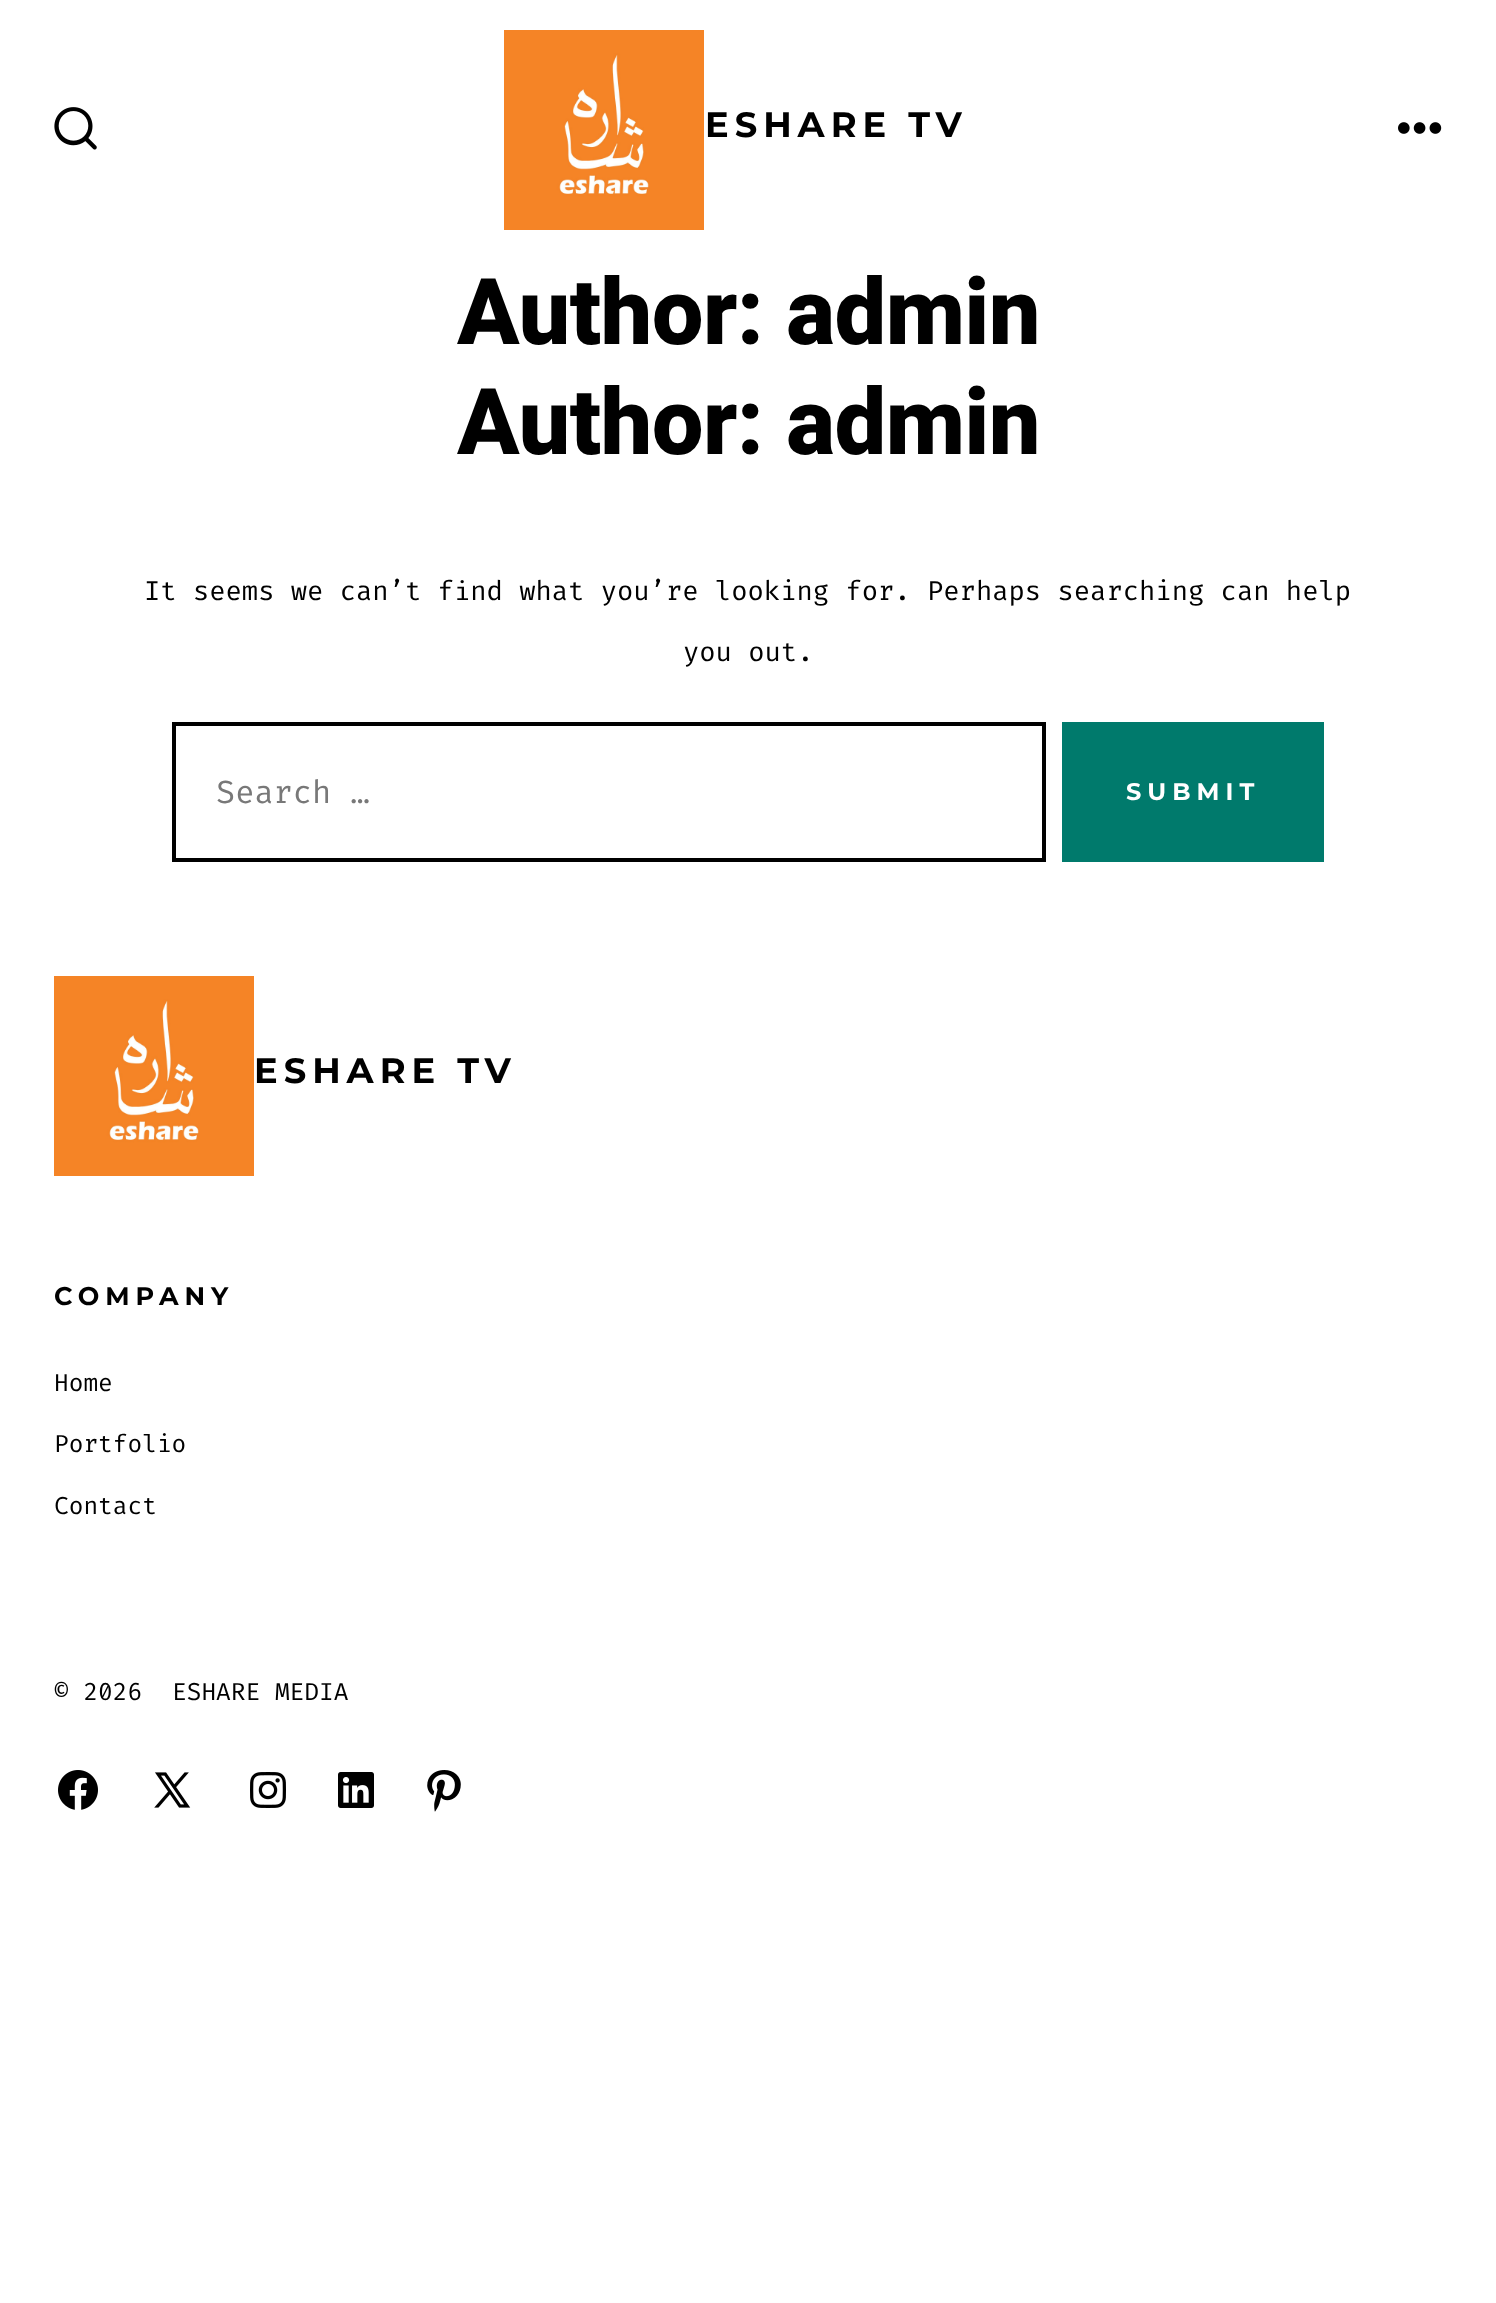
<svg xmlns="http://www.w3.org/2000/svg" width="1496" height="2303">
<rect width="100%" height="100%" fill="#fff"/>
<image x="54" y="107" width="43" height="43" href="media/1.png"/>
<image x="504" y="30" width="200" height="200" href="media/2.png"/>
<text x="705" y="137" style="font-family:Montserrat;font-size:35.25px;font-weight:bold;letter-spacing:6px;fill:#000">ESHARE TV</text>
<image x="1398" y="122" width="44" height="12" href="media/3.png"/>
<text x="457" y="344" style="font-family:Heebo;font-size:92px;font-weight:800;letter-spacing:-0.6px;fill:#000">Author: admin</text>
<text x="457" y="454" style="font-family:Heebo;font-size:92px;font-weight:800;letter-spacing:-0.6px;fill:#000">Author: admin</text>
<text x="144" y="600" style="font-family:Fira Code;font-size:27.2px;fill:#000">It seems we can’t find what you’re looking for. Perhaps searching can help</text>
<text x="683" y="661" style="font-family:Fira Code;font-size:27.2px;fill:#000">you out.</text>
<rect x="174" y="724" width="870" height="136" fill="none" stroke="#000" stroke-width="4"/>
<text x="216" y="803" style="font-family:Fira Code;font-size:32px;fill:#787878">Search …</text>
<rect x="1062" y="722" width="262" height="140" fill="#007a6c"/>
<text x="1126" y="800" style="font-family:Montserrat;font-size:24px;font-weight:bold;letter-spacing:6px;fill:#fff">SUBMIT</text>
<image x="54" y="976" width="200" height="200" href="media/4.png"/>
<text x="254" y="1083" style="font-family:Montserrat;font-size:35.25px;font-weight:bold;letter-spacing:6px;fill:#000">ESHARE TV</text>
<text x="54" y="1305" style="font-family:Montserrat;font-size:25.5px;font-weight:bold;letter-spacing:6px;fill:#000">COMPANY</text>
<text x="54" y="1391" style="font-family:Fira Code;font-size:24.5px;fill:#000">Home</text>
<text x="54" y="1452" style="font-family:Fira Code;font-size:24.5px;fill:#000">Portfolio</text>
<text x="54" y="1514" style="font-family:Fira Code;font-size:24.5px;fill:#000">Contact</text>
<text x="54" y="1700" style="font-family:Fira Code;font-size:24.5px;fill:#000">© 2026</text>
<text x="172" y="1700" style="font-family:Fira Code;font-size:24.5px;fill:#000">ESHARE MEDIA</text>
<image x="58" y="1770" width="40" height="40" href="media/5.png"/>
<image x="154" y="1772" width="37" height="36" href="media/6.png"/>
<image x="250" y="1772" width="36" height="36" href="media/7.png"/>
<image x="338" y="1772" width="36" height="36" href="media/8.png"/>
<image x="427" y="1770" width="34" height="42" href="media/9.png"/>
</svg>
